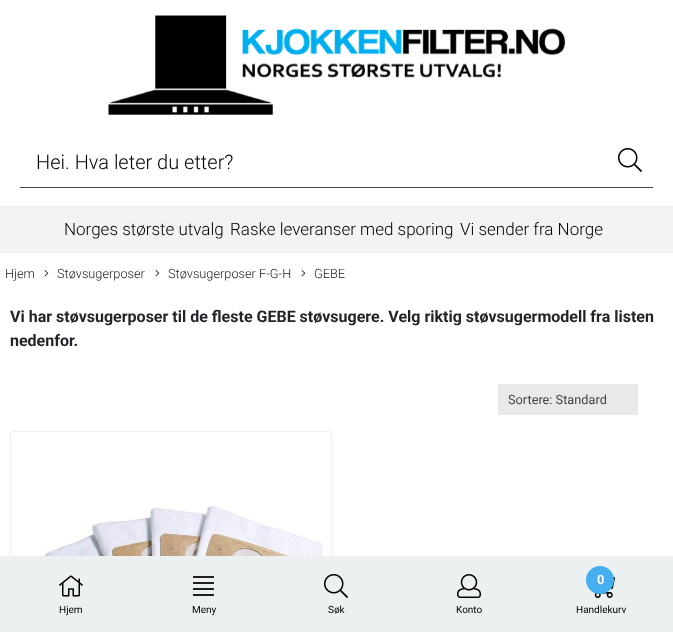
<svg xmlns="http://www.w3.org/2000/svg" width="673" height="632">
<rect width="100%" height="100%" fill="#fff"/>
<image x="108" y="15" width="457" height="100" href="media/1.png"/>
<rect x="20" y="187" width="633" height="1" fill="#444"/>
<text x="36" y="169" style="font-family:Roboto;font-size:20px;font-weight:300;fill:#000">Hei. Hva leter du etter?</text>
<image x="618" y="148" width="24" height="24" href="media/2.png"/>
<rect y="207" width="673" height="45" fill="#f3f3f3"/>
<rect y="206" width="673" height="1" fill="#eee"/>
<rect y="252" width="673" height="1" fill="#eee"/>
<text x="64" y="235" style="font-family:Roboto;font-size:17px;font-weight:300;fill:#000">Norges største utvalg</text>
<text x="230" y="235" style="font-family:Roboto;font-size:17px;font-weight:300;fill:#000">Raske leveranser med sporing</text>
<text x="460" y="235" style="font-family:Roboto;font-size:17px;font-weight:300;fill:#000">Vi sender fra Norge</text>
<text x="5" y="278" style="font-family:Roboto;font-size:12.75px;font-weight:300;fill:#202121">Hjem</text>
<image x="44" y="270" width="5" height="7" href="media/3.png"/>
<text x="57" y="278" style="font-family:Roboto;font-size:12.75px;font-weight:300;fill:#202121">Støvsugerposer</text>
<image x="155" y="270" width="5" height="7" href="media/3.png"/>
<text x="168" y="278" style="font-family:Roboto;font-size:12.75px;font-weight:300;fill:#202121">Støvsugerposer F-G-H</text>
<image x="301" y="270" width="5" height="7" href="media/3.png"/>
<text x="314" y="278" style="font-family:Roboto;font-size:12.75px;font-weight:300;fill:#202121">GEBE</text>
<text x="10" y="322" style="font-family:Roboto;font-size:16px;font-weight:bold;fill:#212529">Vi har støvsugerposer til de fleste GEBE støvsugere. Velg riktig støvsugermodell fra listen</text>
<text x="10" y="346" style="font-family:Roboto;font-size:16px;font-weight:bold;fill:#212529">nedenfor.</text>
<rect x="498" y="384" width="140" height="31" fill="#e9e9e9"/>
<text x="508" y="404" style="font-family:Roboto;font-size:12.75px;fill:#444">Sortere: Standard</text>
<rect x="10.5" y="431.5" width="321" height="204" rx="2.5" fill="none" stroke="#f0f0f0"/>
<image x="11" y="504" width="312" height="52" href="media/4.png"/>
<rect y="556" width="673" height="76" fill="#ecf0f1"/>
<image x="59" y="575" width="24" height="22" href="media/5.png"/>
<text x="59" y="613" style="font-family:Roboto;font-size:10px;fill:#000">Hjem</text>
<image x="193" y="576" width="21" height="20" href="media/6.png"/>
<text x="192" y="613" style="font-family:Roboto;font-size:10px;fill:#000">Meny</text>
<image x="324" y="574" width="24" height="24" href="media/7.png"/>
<text x="328" y="613" style="font-family:Roboto;font-size:10px;fill:#000">Søk</text>
<image x="457" y="574" width="24" height="24" href="media/8.png"/>
<text x="456" y="613" style="font-family:Roboto;font-size:10px;fill:#000">Konto</text>
<image x="594" y="577" width="21" height="21" href="media/9.png"/>
<circle cx="600" cy="580" r="13" fill="#45aff0" stroke="#45aff0" stroke-width="2"/>
<text x="597" y="584" style="font-family:Roboto;font-size:12.75px;font-weight:bold;fill:#fff">0</text>
<text x="576" y="613" style="font-family:Roboto;font-size:10px;fill:#000">Handlekurv</text>
</svg>
